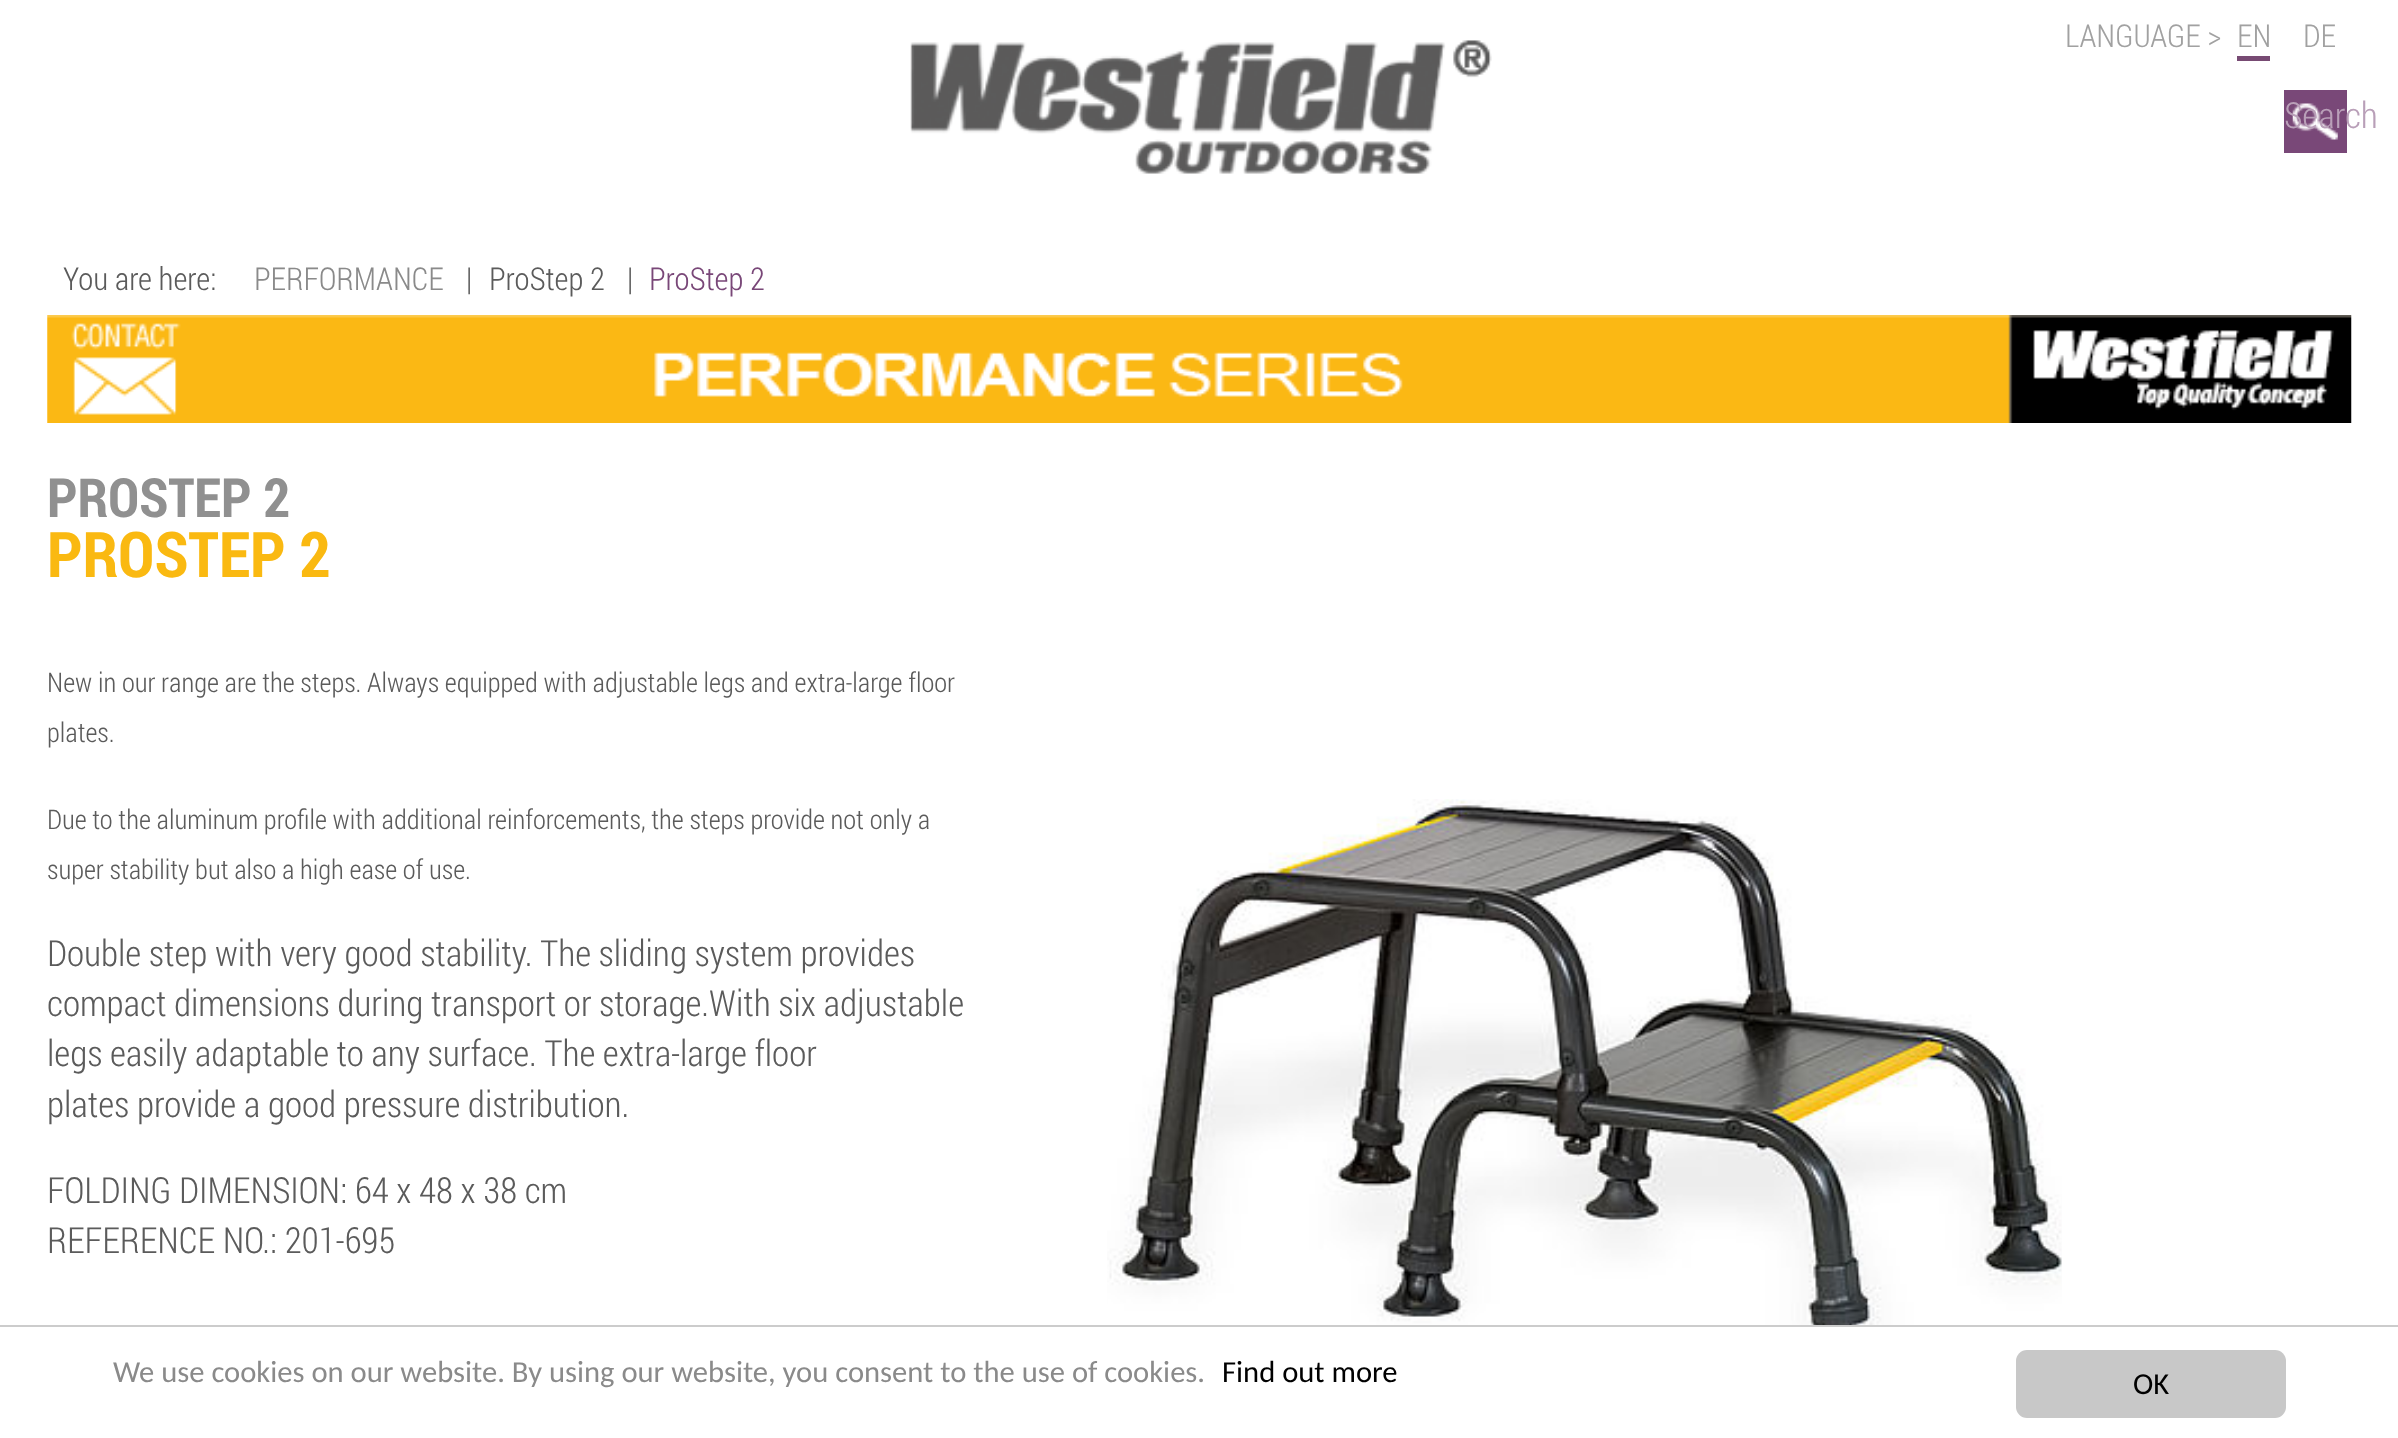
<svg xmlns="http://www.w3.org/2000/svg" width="2398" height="1438">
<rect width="100%" height="100%" fill="#fff"/>
<text x="2065" y="47" style="font-family:Roboto Condensed;font-size:31.5px;font-weight:300;fill:#a1a1a1">LANGUAGE &gt;</text>
<text x="2237" y="47" style="font-family:Roboto Condensed;font-size:31.5px;font-weight:300;fill:#a1a1a1">EN</text>
<rect x="2237" y="56" width="33" height="5" fill="#774a73"/>
<text x="2303" y="47" style="font-family:Roboto Condensed;font-size:31.5px;font-weight:300;fill:#a1a1a1">DE</text>
<image x="910" y="40" width="582" height="134" href="media/1.png"/>
<rect x="2284" y="90" width="63" height="63" fill="#794878"/>
<image x="2292" y="103" width="46" height="37" href="media/2.png"/>
<text x="2284" y="128" style="font-family:Roboto Condensed;font-size:36px;font-weight:300;fill:#b99fb8">Search</text>
<text x="63" y="290" style="font-family:Roboto Condensed;font-size:31.5px;font-weight:300;fill:#5b5b5b">You are here:</text>
<text x="254" y="290" style="font-family:Roboto Condensed;font-size:31.5px;font-weight:300;fill:#8a8a8a">PERFORMANCE</text>
<text x="466" y="290" style="font-family:Roboto Condensed;font-size:31.5px;font-weight:300;fill:#5b5b5b">|</text>
<text x="489" y="290" style="font-family:Roboto Condensed;font-size:31.5px;font-weight:300;fill:#5b5b5b">ProStep 2</text>
<text x="627" y="290" style="font-family:Roboto Condensed;font-size:31.5px;font-weight:300;fill:#5b5b5b">|</text>
<text x="649" y="290" style="font-family:Roboto Condensed;font-size:31.5px;font-weight:300;fill:#794778">ProStep 2</text>
<text x="47" y="517" style="font-family:Roboto Condensed;font-size:54px;font-weight:bold;fill:#909090">PROSTEP 2</text>
<text x="47" y="577" style="font-family:Roboto Condensed;font-size:63px;font-weight:bold;fill:#fab911">PROSTEP 2</text>
<text x="47" y="692" style="font-family:Roboto Condensed;font-size:27px;font-weight:300;fill:#5b5b5b">New in our range are the steps. Always equipped with adjustable legs and extra-large floor</text>
<text x="47" y="742" style="font-family:Roboto Condensed;font-size:27px;font-weight:300;fill:#5b5b5b">plates.</text>
<text x="47" y="829" style="font-family:Roboto Condensed;font-size:27px;font-weight:300;fill:#5b5b5b">Due to the aluminum profile with additional reinforcements, the steps provide not only a</text>
<text x="47" y="879" style="font-family:Roboto Condensed;font-size:27px;font-weight:300;fill:#5b5b5b">super stability but also a high ease of use.</text>
<text x="47" y="966" style="font-family:Roboto Condensed;font-size:36px;font-weight:300;fill:#5b5b5b">Double step with very good stability. The sliding system provides</text>
<text x="47" y="1016" style="font-family:Roboto Condensed;font-size:36px;font-weight:300;fill:#5b5b5b">compact dimensions during transport or storage.With six adjustable</text>
<text x="47" y="1066" style="font-family:Roboto Condensed;font-size:36px;font-weight:300;fill:#5b5b5b">legs easily adaptable to any surface. The extra-large floor</text>
<text x="47" y="1117" style="font-family:Roboto Condensed;font-size:36px;font-weight:300;fill:#5b5b5b">plates provide a good pressure distribution.</text>
<image x="1107" y="799" width="955" height="526" href="media/3.png"/>
<text x="47" y="1203" style="font-family:Roboto Condensed;font-size:36px;font-weight:300;fill:#5b5b5b">FOLDING DIMENSION: 64 x 48 x 38 cm</text>
<text x="47" y="1253" style="font-family:Roboto Condensed;font-size:36px;font-weight:300;fill:#5b5b5b">REFERENCE NO.: 201-695</text>
<image x="47" y="315" width="2305" height="108" href="media/4.png"/>
<image x="71" y="323" width="110" height="92" href="media/5.png"/>
<rect y="1325" width="2398" height="2" fill="#ccc"/>
<text x="113" y="1382" style="font-family:Carlito;font-size:30.6px;fill:#8a8a8a">We use cookies on our website. By using our website, you consent to the use of cookies.</text>
<text x="1222" y="1382" style="font-family:Carlito;font-size:30.6px;fill:#000">Find out more</text>
<rect x="2016" y="1350" width="270" height="68" rx="11" fill="#c8c8c8"/>
<text x="2133" y="1394" style="font-family:Carlito;font-size:30.6px;fill:#000">OK</text>
</svg>
